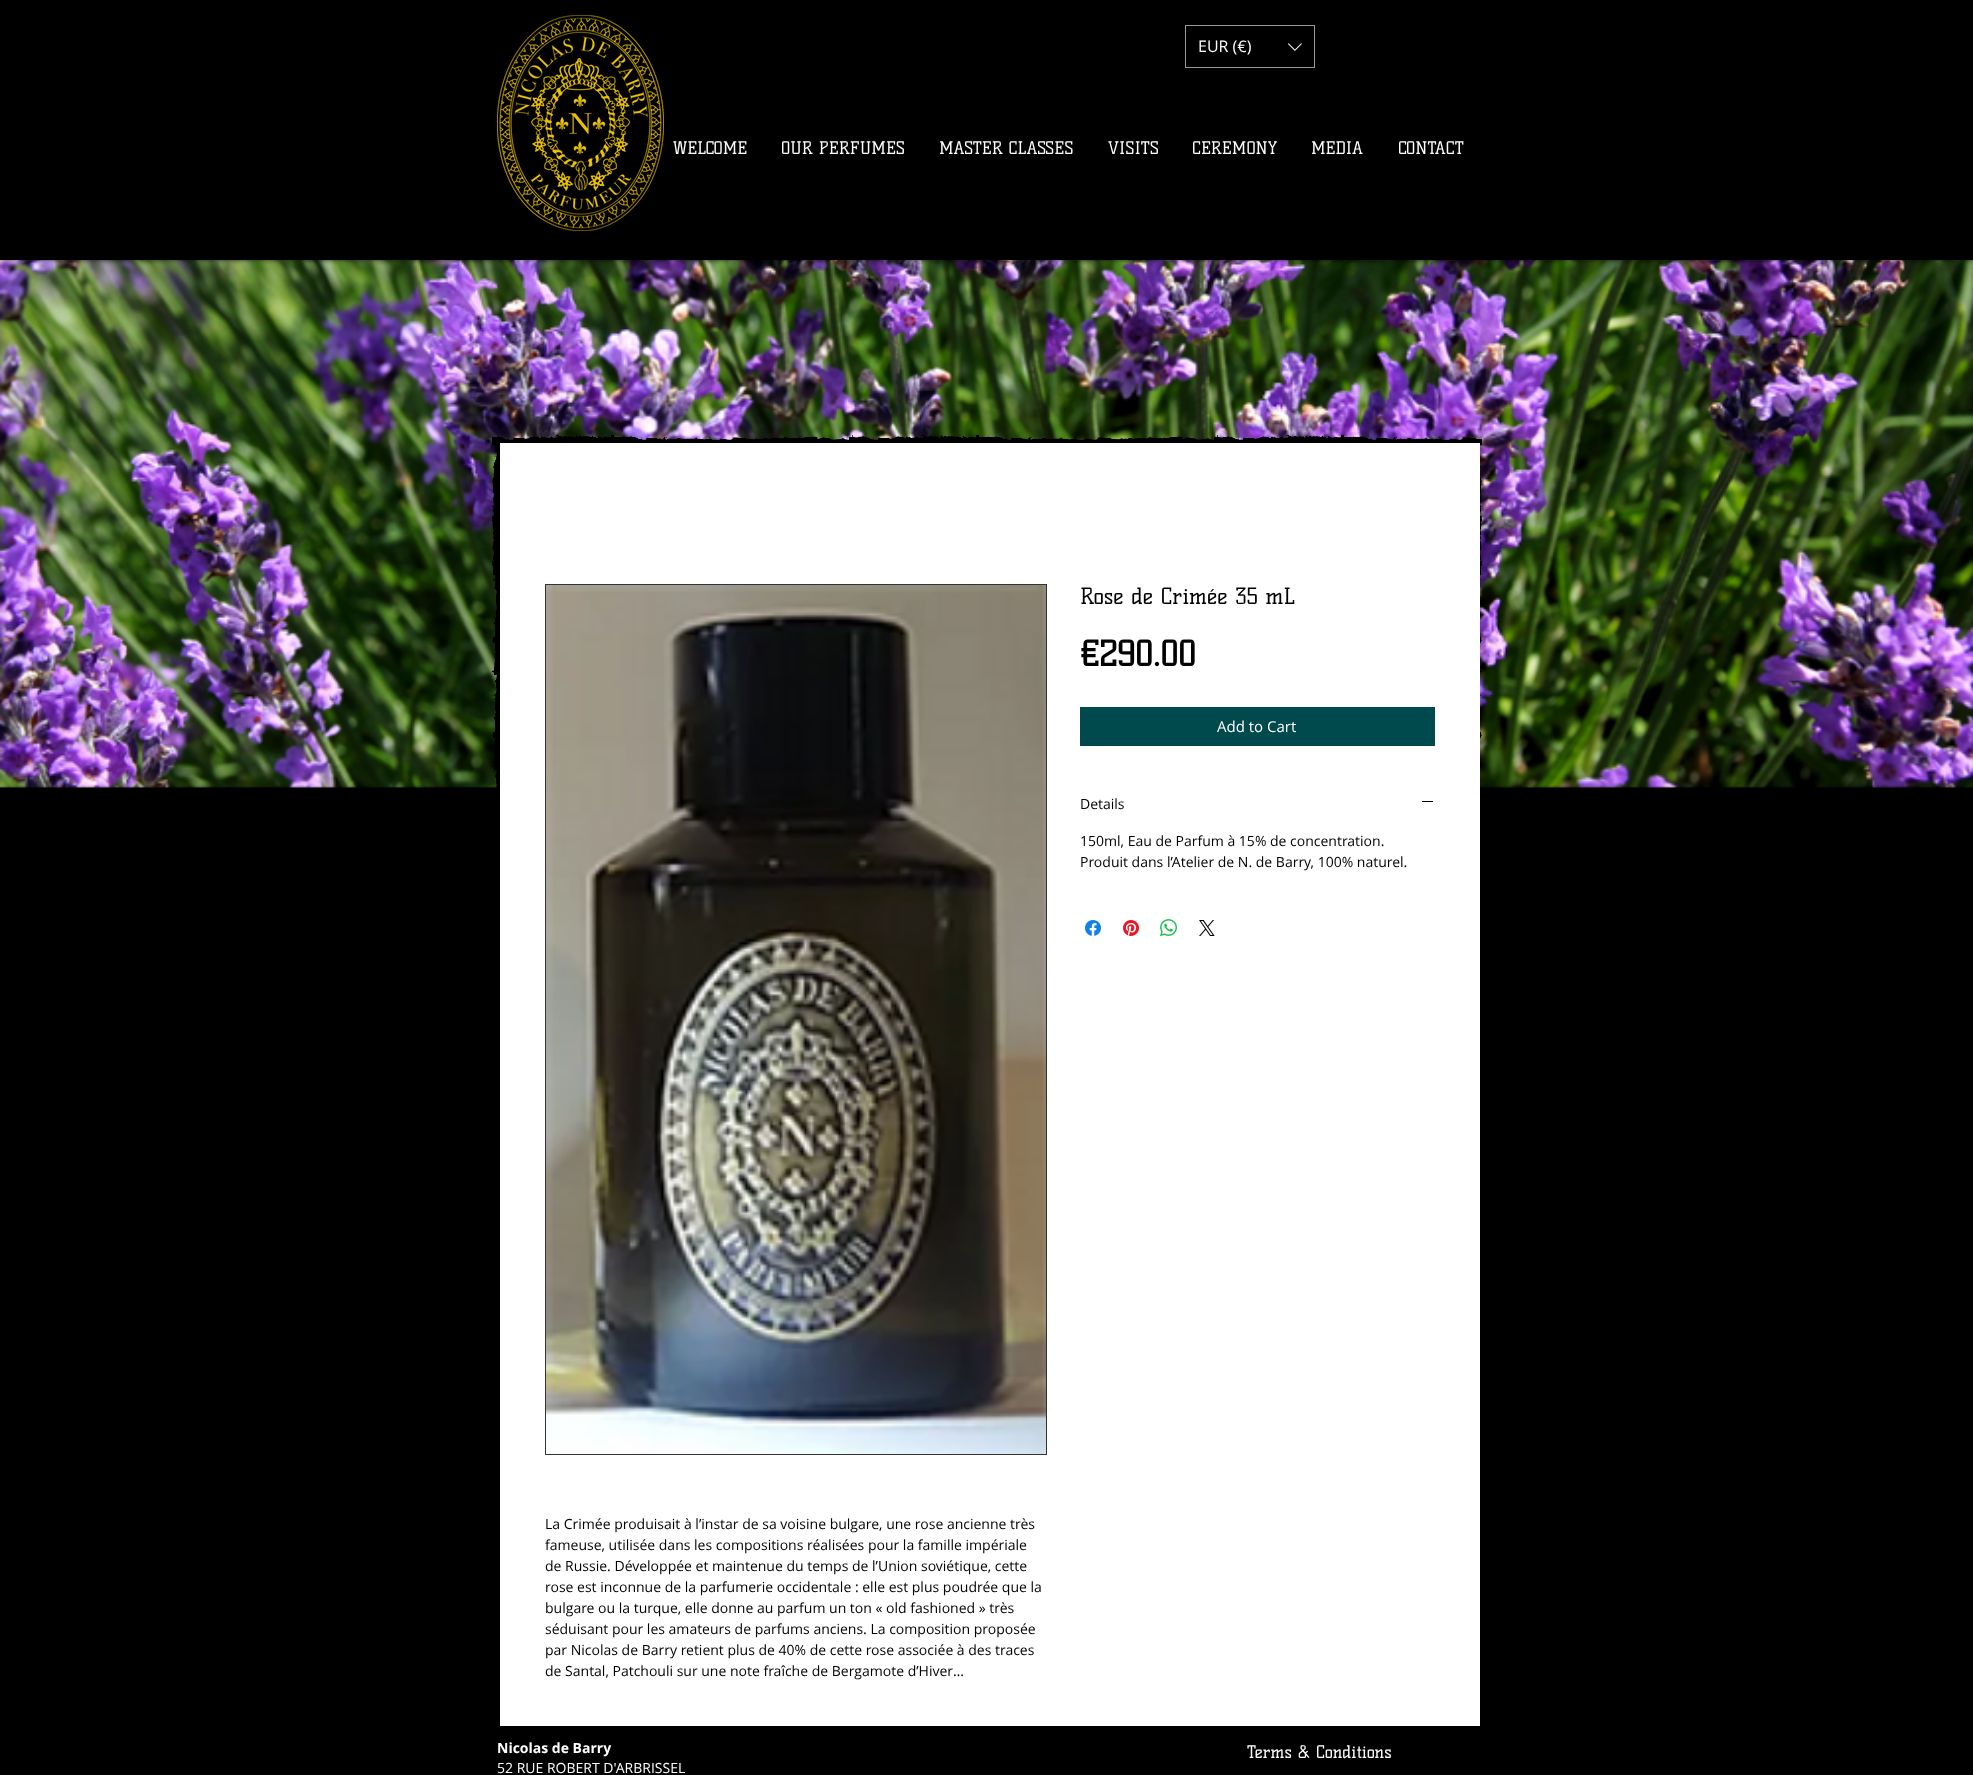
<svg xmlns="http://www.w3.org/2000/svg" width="1973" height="1775">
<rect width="100%" height="100%" fill="#000"/>
<image x="0" y="260" width="1973" height="528" href="media/11.png"/>
<rect width="1973" height="260" fill="#000000b3" filter="blur(2.5px)"/>
<rect x="1185.5" y="25.5" width="129" height="42" fill="none" stroke="#999"/>
<text x="1198" y="52" style="font-family:Open Sans;font-size:16px;fill:#fff">EUR (€)</text>
<image x="1287" y="43" width="15" height="8" href="media/1.png"/>
<image x="497" y="15" width="167" height="216" href="media/2.png"/>
<text x="673" y="154" style="font-family:Kelly Slab;font-size:17px;fill:#fff">WELCOME</text>
<text x="781" y="154" style="font-family:Kelly Slab;font-size:17px;fill:#fff">OUR PERFUMES</text>
<text x="939" y="154" style="font-family:Kelly Slab;font-size:17px;fill:#fff">MASTER CLASSES</text>
<text x="1108" y="154" style="font-family:Kelly Slab;font-size:17px;fill:#fff">VISITS</text>
<text x="1192" y="154" style="font-family:Kelly Slab;font-size:17px;fill:#fff">CEREMONY</text>
<text x="1311" y="154" style="font-family:Kelly Slab;font-size:17px;fill:#fff">MEDIA</text>
<text x="1398" y="154" style="font-family:Kelly Slab;font-size:17px;fill:#fff">CONTACT</text>
<image x="492" y="435" width="990" height="10" href="media/3.png"/>
<image x="492" y="445" width="8" height="343" href="media/4.png"/>
<image x="1480" y="465" width="2" height="303" href="media/5.png"/>
<rect x="500" y="443" width="980" height="1283" fill="#fff"/>
<text x="1080" y="604" style="font-family:Kelly Slab;font-size:22px;fill:#000">Rose de Crimée 35 mL</text>
<text x="1080" y="666" style="font-family:Kelly Slab;font-size:34px;font-weight:bold;fill:#000">€290.00</text>
<rect x="1080" y="707" width="355" height="39" fill="#00494c"/>
<text x="1217" y="732" style="font-family:Open Sans;font-size:15px;fill:#fff">Add to Cart</text>
<text x="1080" y="809" style="font-family:Open Sans;font-size:14px;fill:#000">Details</text>
<rect x="1422" y="801" width="11" height="1" fill="#000"/>
<text x="1080" y="846" style="font-family:Open Sans;font-size:14px;fill:#000">150ml, Eau de Parfum à 15% de concentration.</text>
<text x="1080" y="867" style="font-family:Open Sans;font-size:14px;fill:#000">Produit dans l’Atelier de N. de Barry, 100% naturel.</text>
<image x="1085" y="920" width="16" height="16" href="media/6.png"/>
<image x="1123" y="920" width="16" height="16" href="media/7.png"/>
<image x="1160" y="919" width="17" height="17" href="media/8.png"/>
<image x="1199" y="920" width="16" height="16" href="media/9.png"/>
<rect x="545.5" y="584.5" width="501" height="870" fill="none" stroke="#333"/>
<image x="546" y="585" width="500" height="869" href="media/10.png"/>
<text x="545" y="1529" style="font-family:Open Sans;font-size:14px;fill:#000">La Crimée produisait à l’instar de sa voisine bulgare, une rose ancienne très</text>
<text x="545" y="1550" style="font-family:Open Sans;font-size:14px;fill:#000">fameuse, utilisée dans les compositions réalisées pour la famille impériale</text>
<text x="545" y="1571" style="font-family:Open Sans;font-size:14px;fill:#000">de Russie. Développée et maintenue du temps de l’Union soviétique, cette</text>
<text x="545" y="1592" style="font-family:Open Sans;font-size:14px;fill:#000">rose est inconnue de la parfumerie occidentale : elle est plus poudrée que la</text>
<text x="545" y="1613" style="font-family:Open Sans;font-size:14px;fill:#000">bulgare ou la turque, elle donne au parfum un ton « old fashioned » très</text>
<text x="545" y="1634" style="font-family:Open Sans;font-size:14px;fill:#000">séduisant pour les amateurs de parfums anciens. La composition proposée</text>
<text x="545" y="1655" style="font-family:Open Sans;font-size:14px;fill:#000">par Nicolas de Barry retient plus de 40% de cette rose associée à des traces</text>
<text x="545" y="1676" style="font-family:Open Sans;font-size:14px;fill:#000">de Santal, Patchouli sur une note fraîche de Bergamote d’Hiver…</text>
<text x="497" y="1753" style="font-family:Open Sans;font-size:14px;font-weight:bold;fill:#fff">Nicolas de Barry</text>
<text x="497" y="1773" style="font-family:Open Sans;font-size:14px;fill:#fff">52 RUE ROBERT D'ARBRISSEL</text>
<text x="1247" y="1758" style="font-family:Kelly Slab;font-size:17px;fill:#fff">Terms &amp; Conditions</text>
</svg>
